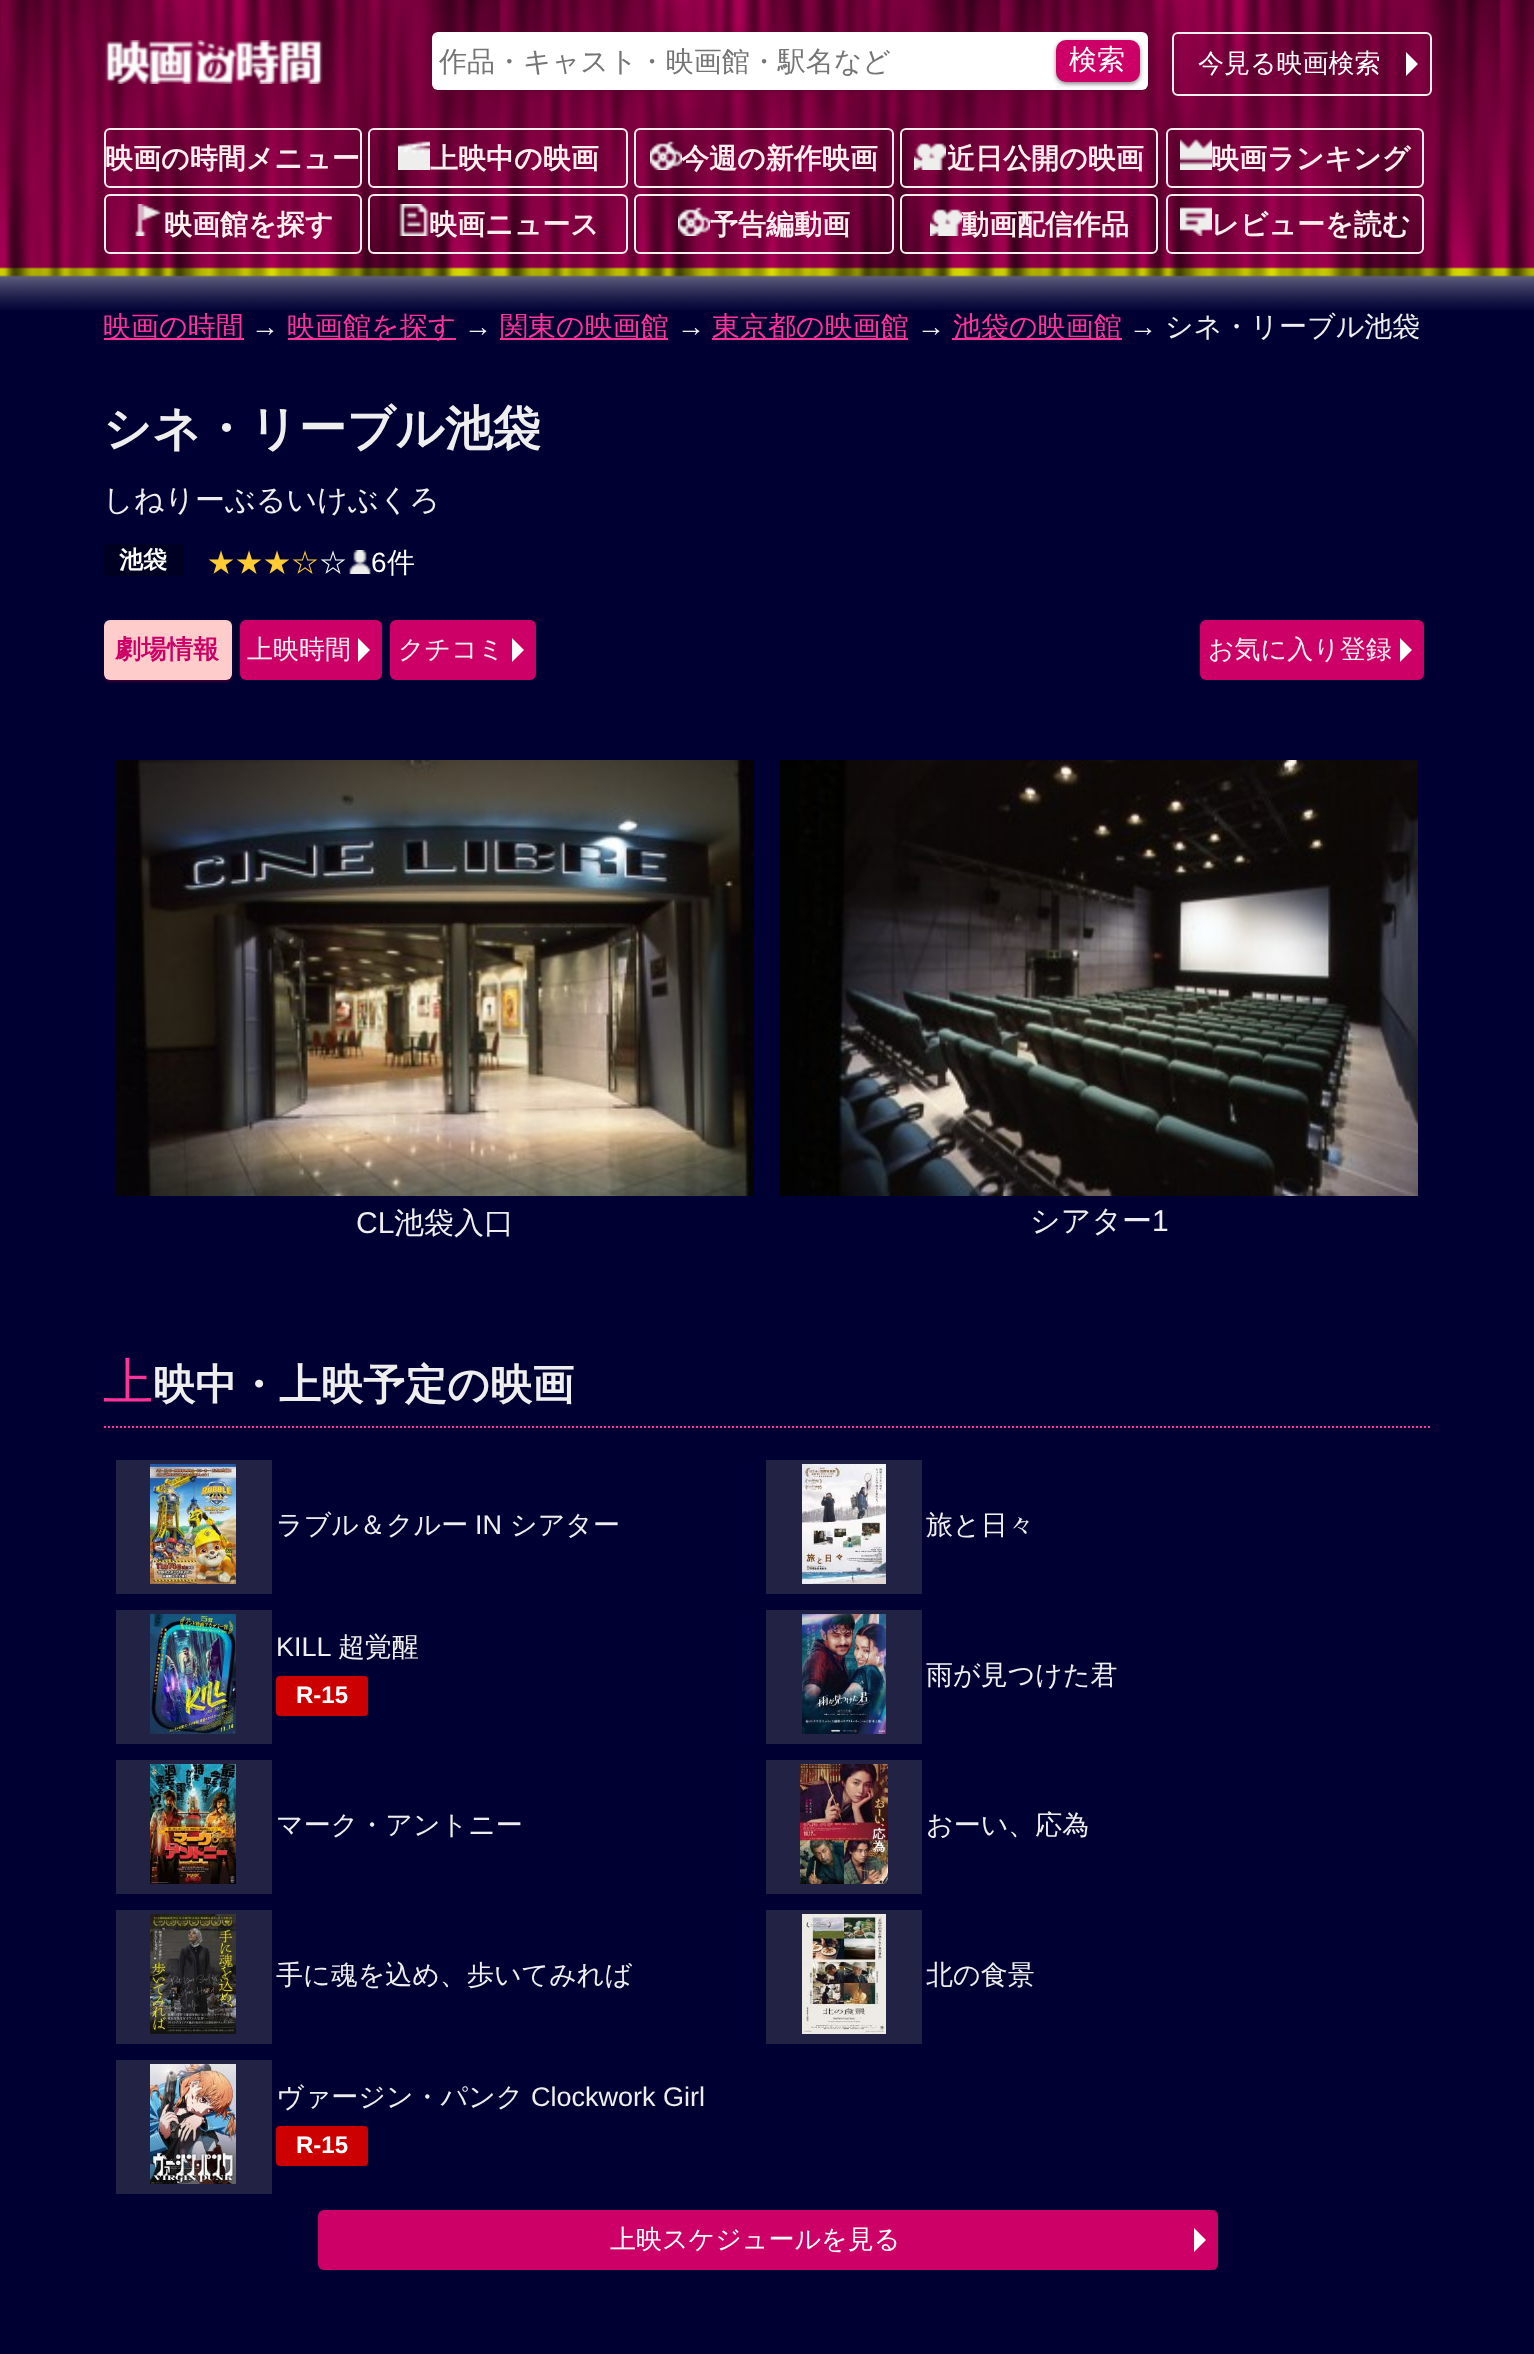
<svg xmlns="http://www.w3.org/2000/svg" width="1534" height="2354">
<rect width="100%" height="100%" fill="#003"/>
<image x="0" y="0" width="1534" height="310" href="media/1.png"/>
<image x="105" y="40" width="218" height="44" href="media/2.png"/>
<rect x="432" y="34" width="716" height="58" rx="6" fill="#60003099" filter="blur(2px)"/>
<rect x="432" y="32" width="716" height="58" rx="6" fill="#fff"/>
<text x="439" y="71" style="font-family:WenQuanYi Zen Hei;font-size:28px;font-weight:500;fill:#757575">作品・キャスト・映画館・駅名など</text>
<rect x="1056" y="42" width="84" height="42" rx="10" fill="#40304099" filter="blur(2px)"/>
<rect x="1056" y="40" width="84" height="42" rx="10" fill="#c06"/>
<text x="1069" y="69" style="font-family:WenQuanYi Zen Hei;font-size:28px;font-weight:500;fill:#fff">検索</text>
<rect x="1173" y="33" width="258" height="62" rx="5" fill="none" stroke="#fee" stroke-width="2"/>
<text x="1198" y="72" style="font-family:WenQuanYi Zen Hei;font-size:26px;font-weight:500;fill:#fff">今見る映画検索</text>
<path d="M1406 76v-24l12 12z" fill="#fff"/>
<rect x="105" y="129" width="256" height="58" rx="5" fill="none" stroke="#fee" stroke-width="2"/>
<text x="105" y="168" style="font-family:WenQuanYi Zen Hei;font-size:28px;font-weight:bold;fill:#fee">映画の時間メニュー</text>
<rect x="369" y="129" width="258" height="58" rx="5" fill="none" stroke="#fee" stroke-width="2"/>
<image x="398" y="141" width="32" height="29" href="media/3.png"/>
<text x="430" y="168" style="font-family:WenQuanYi Zen Hei;font-size:28px;font-weight:bold;fill:#fee">上映中の映画</text>
<rect x="635" y="129" width="258" height="58" rx="5" fill="none" stroke="#fee" stroke-width="2"/>
<image x="650" y="141" width="32" height="29" href="media/4.png"/>
<text x="681" y="168" style="font-family:WenQuanYi Zen Hei;font-size:28px;font-weight:bold;fill:#fee">今週の新作映画</text>
<rect x="901" y="129" width="256" height="58" rx="5" fill="none" stroke="#fee" stroke-width="2"/>
<image x="914" y="143" width="32" height="27" href="media/5.png"/>
<text x="947" y="168" style="font-family:WenQuanYi Zen Hei;font-size:28px;font-weight:bold;fill:#fee">近日公開の映画</text>
<rect x="1167" y="129" width="256" height="58" rx="5" fill="none" stroke="#fee" stroke-width="2"/>
<image x="1180" y="139" width="32" height="31" href="media/6.png"/>
<text x="1211" y="168" style="font-family:WenQuanYi Zen Hei;font-size:28px;font-weight:bold;fill:#fee">映画ランキング</text>
<rect x="105" y="195" width="256" height="58" rx="5" fill="none" stroke="#fee" stroke-width="2"/>
<image x="135" y="204" width="26" height="32" href="media/7.png"/>
<text x="164" y="234" style="font-family:WenQuanYi Zen Hei;font-size:28px;font-weight:bold;fill:#fee">映画館を探す</text>
<rect x="369" y="195" width="258" height="58" rx="5" fill="none" stroke="#fee" stroke-width="2"/>
<image x="399" y="204" width="30" height="32" href="media/8.png"/>
<text x="429" y="234" style="font-family:WenQuanYi Zen Hei;font-size:28px;font-weight:bold;fill:#fee">映画ニュース</text>
<rect x="635" y="195" width="258" height="58" rx="5" fill="none" stroke="#fee" stroke-width="2"/>
<image x="678" y="207" width="32" height="29" href="media/9.png"/>
<text x="710" y="234" style="font-family:WenQuanYi Zen Hei;font-size:28px;font-weight:bold;fill:#fee">予告編動画</text>
<rect x="901" y="195" width="256" height="58" rx="5" fill="none" stroke="#fee" stroke-width="2"/>
<image x="930" y="209" width="32" height="27" href="media/10.png"/>
<text x="961" y="234" style="font-family:WenQuanYi Zen Hei;font-size:28px;font-weight:bold;fill:#fee">動画配信作品</text>
<rect x="1167" y="195" width="256" height="58" rx="5" fill="none" stroke="#fee" stroke-width="2"/>
<image x="1180" y="207" width="32" height="29" href="media/11.png"/>
<text x="1211" y="234" style="font-family:WenQuanYi Zen Hei;font-size:28px;font-weight:bold;fill:#fee">レビューを読む</text>
<rect x="104" y="338" width="140" height="2" fill="#f39"/>
<text x="103" y="336" style="font-family:WenQuanYi Zen Hei;font-size:28px;font-weight:500;fill:#f39">映画の時間</text>
<text x="251" y="336" style="font-family:Liberation Sans;font-size:28px;fill:#eee">→</text>
<rect x="288" y="338" width="168" height="2" fill="#f39"/>
<text x="287" y="336" style="font-family:WenQuanYi Zen Hei;font-size:28px;font-weight:500;fill:#f39">映画館を探す</text>
<text x="464" y="336" style="font-family:Liberation Sans;font-size:28px;fill:#eee">→</text>
<rect x="500" y="338" width="168" height="2" fill="#f39"/>
<text x="500" y="336" style="font-family:WenQuanYi Zen Hei;font-size:28px;font-weight:500;fill:#f39">関東の映画館</text>
<text x="677" y="336" style="font-family:Liberation Sans;font-size:28px;fill:#eee">→</text>
<rect x="712" y="338" width="196" height="2" fill="#f39"/>
<text x="712" y="336" style="font-family:WenQuanYi Zen Hei;font-size:28px;font-weight:500;fill:#f39">東京都の映画館</text>
<text x="917" y="336" style="font-family:Liberation Sans;font-size:28px;fill:#eee">→</text>
<rect x="952" y="338" width="170" height="2" fill="#f39"/>
<text x="953" y="336" style="font-family:WenQuanYi Zen Hei;font-size:28px;font-weight:500;fill:#f39">池袋の映画館</text>
<text x="1129" y="336" style="font-family:Liberation Sans;font-size:28px;fill:#eee">→</text>
<text x="1165" y="336" style="font-family:WenQuanYi Zen Hei;font-size:28px;font-weight:500;fill:#eee">シネ・リーブル池袋</text>
<text x="103" y="445" style="font-family:WenQuanYi Zen Hei;font-size:48px;font-weight:bold;fill:#eee">シネ・リーブル池袋</text>
<text x="103" y="510" style="font-family:WenQuanYi Zen Hei;font-size:30px;font-weight:500;fill:#eee">しねりーぶるいけぶくろ</text>
<rect x="104" y="544" width="80" height="32" rx="4" fill="#002"/>
<text x="119" y="568" style="font-family:WenQuanYi Zen Hei;font-size:24px;font-weight:bold;fill:#fff">池袋</text>
<text x="207" y="572" style="font-family:WenQuanYi Zen Hei;font-size:28px;font-weight:500;fill:#fc3">★★★☆</text>
<text x="319" y="572" style="font-family:WenQuanYi Zen Hei;font-size:28px;font-weight:500;fill:#fff">☆</text>
<image x="349" y="550" width="22" height="24" href="media/12.png"/>
<text x="371" y="572" style="font-family:Liberation Sans;font-size:28px;fill:#fff">6</text>
<text x="387" y="572" style="font-family:WenQuanYi Zen Hei;font-size:28px;font-weight:500;fill:#fff">件</text>
<rect x="104" y="622" width="128" height="60" rx="6" fill="#60003099" filter="blur(1px)"/>
<rect x="104" y="620" width="128" height="60" rx="6" fill="#fcc"/>
<text x="115" y="658" style="font-family:WenQuanYi Zen Hei;font-size:26px;font-weight:bold;fill:#c06">劇場情報</text>
<rect x="240" y="620" width="142" height="60" rx="6" fill="#c06"/>
<text x="247" y="658" style="font-family:WenQuanYi Zen Hei;font-size:26px;font-weight:500;fill:#eee">上映時間</text>
<path d="M358 662v-24l12 12z" fill="#fff"/>
<rect x="390" y="620" width="146" height="60" rx="6" fill="#c06"/>
<text x="398" y="658" style="font-family:WenQuanYi Zen Hei;font-size:26px;font-weight:500;fill:#eee">クチコミ</text>
<path d="M512 662v-24l12 12z" fill="#fff"/>
<rect x="1200" y="620" width="224" height="60" rx="6" fill="#c06"/>
<text x="1208" y="658" style="font-family:WenQuanYi Zen Hei;font-size:26px;font-weight:500;fill:#eee">お気に入り登録</text>
<path d="M1400 662v-24l12 12z" fill="#fff"/>
<image x="116" y="760" width="638" height="436" href="media/13.png"/>
<text x="356" y="1233" style="font-family:Liberation Sans;font-size:30px;fill:#eee">CL</text>
<text x="394" y="1233" style="font-family:WenQuanYi Zen Hei;font-size:30px;font-weight:500;fill:#eee">池袋入口</text>
<image x="780" y="760" width="638" height="436" href="media/14.png"/>
<text x="1030" y="1231" style="font-family:WenQuanYi Zen Hei;font-size:30px;font-weight:500;fill:#eee">シアター</text>
<text x="1152" y="1231" style="font-family:Liberation Sans;font-size:30px;fill:#eee">1</text>
<path d="M104 1427h1328" fill="none" stroke="#f39" stroke-width="2" stroke-dasharray="2 2"/>
<text x="103" y="1399" style="font-family:Noto Sans;font-size:50px;font-weight:100;fill:#f39">上</text>
<text x="153" y="1399" style="font-family:WenQuanYi Zen Hei;font-size:42px;font-weight:bold;fill:#eee">映中・上映予定の映画</text>
<rect x="116" y="1460" width="156" height="134" fill="#224"/>
<image x="150" y="1464" width="86" height="120" href="media/15.png"/>
<text x="276" y="1534" style="font-family:WenQuanYi Zen Hei;font-size:27px;font-weight:500;fill:#eee">ラブル＆クルー</text>
<text x="475" y="1534" style="font-family:Liberation Sans;font-size:27px;fill:#eee">IN</text>
<text x="510" y="1534" style="font-family:WenQuanYi Zen Hei;font-size:27px;font-weight:500;fill:#eee">シアター</text>
<rect x="766" y="1460" width="156" height="134" fill="#224"/>
<image x="802" y="1464" width="84" height="120" href="media/16.png"/>
<text x="926" y="1534" style="font-family:WenQuanYi Zen Hei;font-size:27px;font-weight:500;fill:#eee">旅と日々</text>
<rect x="116" y="1610" width="156" height="134" fill="#224"/>
<image x="150" y="1614" width="86" height="120" href="media/17.png"/>
<text x="276" y="1656" style="font-family:Liberation Sans;font-size:27px;fill:#eee">KILL</text>
<text x="338" y="1656" style="font-family:WenQuanYi Zen Hei;font-size:27px;font-weight:500;fill:#eee">超覚醒</text>
<rect x="276" y="1676" width="92" height="40" rx="4" fill="#c00"/>
<text x="296" y="1703" style="font-family:Liberation Sans;font-size:24px;font-weight:bold;fill:#fff">R-15</text>
<rect x="766" y="1610" width="156" height="134" fill="#224"/>
<image x="802" y="1614" width="84" height="120" href="media/18.png"/>
<text x="926" y="1684" style="font-family:WenQuanYi Zen Hei;font-size:27px;font-weight:500;fill:#eee">雨が見つけた君</text>
<rect x="116" y="1760" width="156" height="134" fill="#224"/>
<image x="150" y="1764" width="86" height="120" href="media/19.png"/>
<text x="276" y="1834" style="font-family:WenQuanYi Zen Hei;font-size:27px;font-weight:500;fill:#eee">マーク・アントニー</text>
<rect x="766" y="1760" width="156" height="134" fill="#224"/>
<image x="800" y="1764" width="88" height="120" href="media/20.png"/>
<text x="926" y="1834" style="font-family:WenQuanYi Zen Hei;font-size:27px;font-weight:500;fill:#eee">おーい、応為</text>
<rect x="116" y="1910" width="156" height="134" fill="#224"/>
<image x="150" y="1914" width="86" height="120" href="media/21.png"/>
<text x="276" y="1984" style="font-family:WenQuanYi Zen Hei;font-size:27px;font-weight:500;fill:#eee">手に魂を込め、歩いてみれば</text>
<rect x="766" y="1910" width="156" height="134" fill="#224"/>
<image x="802" y="1914" width="84" height="120" href="media/22.png"/>
<text x="926" y="1984" style="font-family:WenQuanYi Zen Hei;font-size:27px;font-weight:500;fill:#eee">北の食景</text>
<rect x="116" y="2060" width="156" height="134" fill="#224"/>
<image x="150" y="2064" width="86" height="120" href="media/23.png"/>
<text x="276" y="2106" style="font-family:WenQuanYi Zen Hei;font-size:27px;font-weight:500;fill:#eee">ヴァージン・パンク</text>
<text x="531" y="2106" style="font-family:Liberation Sans;font-size:27px;fill:#eee">Clockwork Girl</text>
<rect x="276" y="2126" width="92" height="40" rx="4" fill="#c00"/>
<text x="296" y="2153" style="font-family:Liberation Sans;font-size:24px;font-weight:bold;fill:#fff">R-15</text>
<rect x="318" y="2210" width="900" height="60" rx="6" fill="#c06"/>
<text x="610" y="2248" style="font-family:WenQuanYi Zen Hei;font-size:26px;font-weight:500;fill:#fff">上映スケジュールを見る</text>
<path d="M1194 2252v-24l12 12z" fill="#fff"/>
</svg>
